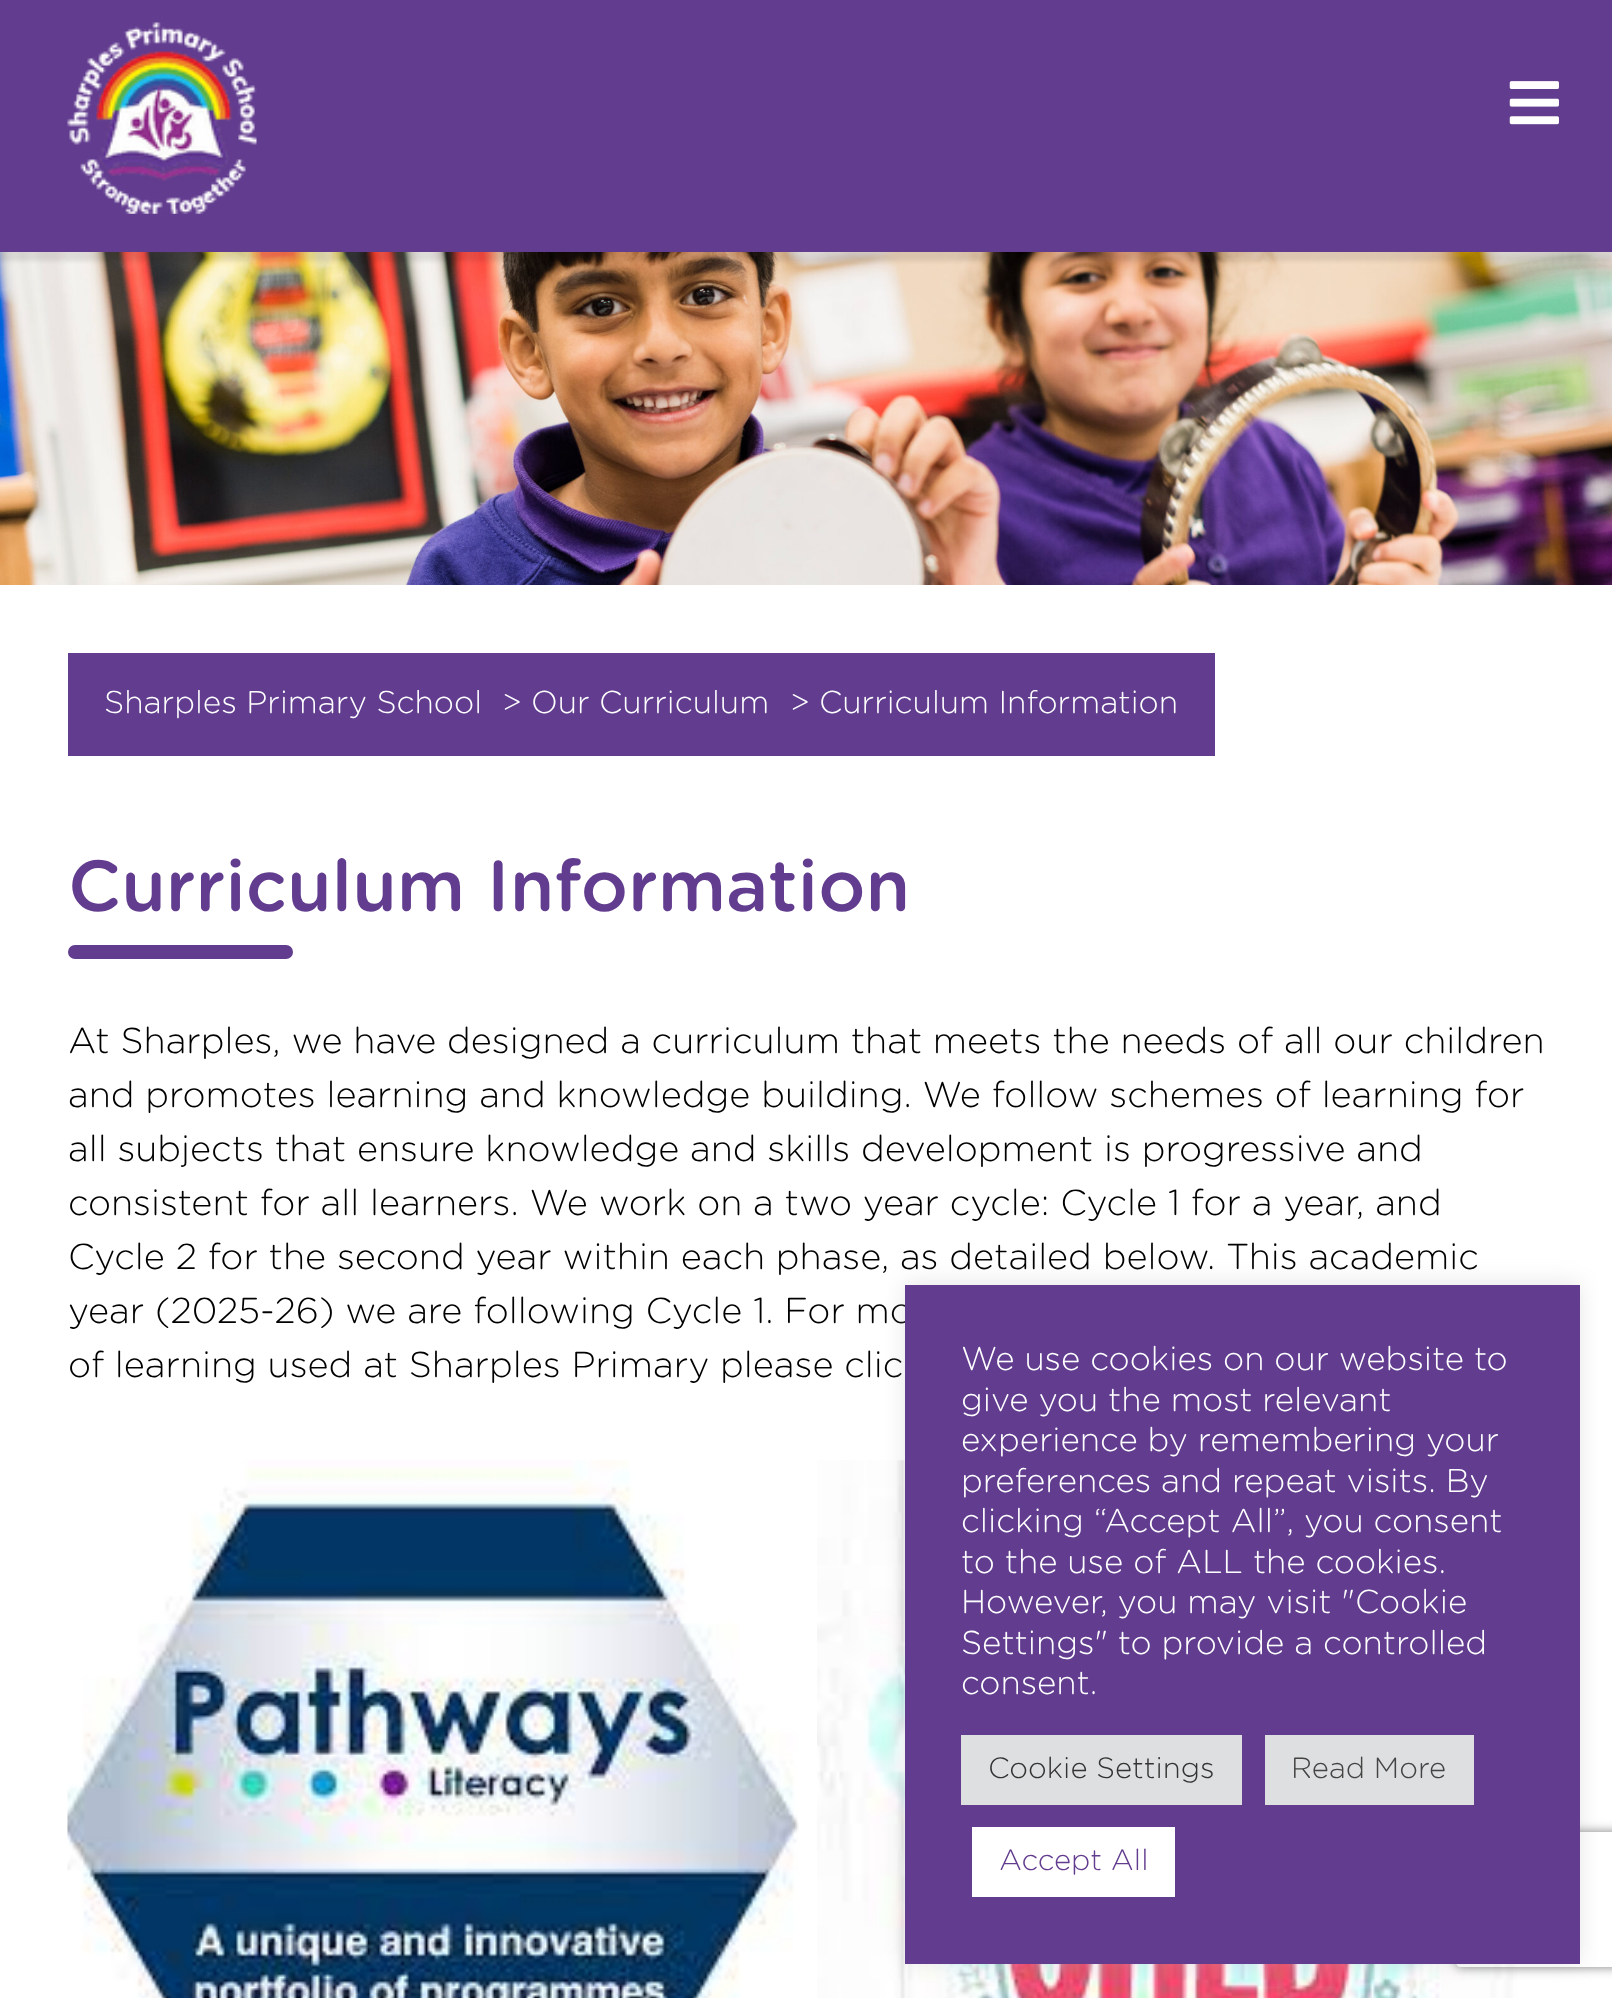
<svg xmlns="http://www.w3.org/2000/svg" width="1612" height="1998">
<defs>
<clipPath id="clip1"><path d="M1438 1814h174v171h-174zm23 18h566c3 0 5 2 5 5v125c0 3-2 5-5 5h-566c-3 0-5-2-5-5v-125c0-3 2-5 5-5z" clip-rule="evenodd"/></clipPath>
</defs>
<rect width="100%" height="100%" fill="#fff"/>
<image x="0" y="252" width="1612" height="333" href="media/3.png"/>
<rect y="9" width="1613" height="252" fill="#00000017" filter="blur(2px)"/>
<rect width="1612" height="252" fill="#623c8f"/>
<image x="67" y="22" width="190" height="192" href="media/1.png"/>
<image x="1509" y="81" width="50" height="44" href="media/2.png"/>
<rect x="68" y="653" width="1147" height="103" fill="#623c8f"/>
<text x="104" y="713" style="font-family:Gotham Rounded;font-size:31.5px;font-weight:300;fill:#fff">Sharples Primary School</text>
<text x="502" y="713" style="font-family:Gotham Rounded;font-size:31.5px;font-weight:300;fill:#fff">&gt; Our Curriculum</text>
<text x="790" y="713" style="font-family:Gotham Rounded;font-size:31.5px;font-weight:300;fill:#fff">&gt; Curriculum Information</text>
<text x="68" y="911" style="font-family:Gotham Rounded;font-size:72px;font-weight:500;fill:#623c8f">Curriculum Information</text>
<rect x="68" y="945" width="225" height="14" rx="7" fill="#623c8f"/>
<text x="68" y="1053" style="font-family:Gotham Rounded;font-size:36px;font-weight:300;fill:#000">At Sharples, we have designed a curriculum that meets the needs of all our children</text>
<text x="68" y="1107" style="font-family:Gotham Rounded;font-size:36px;font-weight:300;fill:#000">and promotes learning and knowledge building. We follow schemes of learning for</text>
<text x="68" y="1161" style="font-family:Gotham Rounded;font-size:36px;font-weight:300;fill:#000">all subjects that ensure knowledge and skills development is progressive and</text>
<text x="68" y="1215" style="font-family:Gotham Rounded;font-size:36px;font-weight:300;fill:#000">consistent for all learners. We work on a two year cycle: Cycle 1 for a year, and</text>
<text x="68" y="1269" style="font-family:Gotham Rounded;font-size:36px;font-weight:300;fill:#000">Cycle 2 for the second year within each phase, as detailed below. This academic</text>
<text x="68" y="1323" style="font-family:Gotham Rounded;font-size:36px;font-weight:300;fill:#000">year (2025-26) we are following Cycle 1. For mo</text>
<text x="68" y="1377" style="font-family:Gotham Rounded;font-size:36px;font-weight:300;fill:#000">of learning used at Sharples Primary please clic</text>
<image x="67" y="1460" width="732" height="538" href="media/4.png"/>
<image x="817" y="1460" width="700" height="538" href="media/5.png"/>
<rect x="905" y="1283" width="675" height="679" fill="#acabab4d" filter="blur(11px)"/>
<g clip-path="url(#clip1)">
<rect x="1456" y="1832" width="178" height="135" rx="5" fill="#808080" filter="blur(5.5px)"/>
</g>
<rect x="905" y="1285" width="675" height="679" fill="#623c8f"/>
<text x="961" y="1370" style="font-family:Gotham Rounded;font-size:33px;font-weight:300;fill:#fff">We use cookies on our website to</text>
<text x="961" y="1411" style="font-family:Gotham Rounded;font-size:33px;font-weight:300;fill:#fff">give you the most relevant</text>
<text x="961" y="1451" style="font-family:Gotham Rounded;font-size:33px;font-weight:300;fill:#fff">experience by remembering your</text>
<text x="961" y="1492" style="font-family:Gotham Rounded;font-size:33px;font-weight:300;fill:#fff">preferences and repeat visits. By</text>
<text x="961" y="1532" style="font-family:Gotham Rounded;font-size:33px;font-weight:300;fill:#fff">clicking “Accept All”, you consent</text>
<text x="961" y="1573" style="font-family:Gotham Rounded;font-size:33px;font-weight:300;fill:#fff">to the use of ALL the cookies.</text>
<text x="961" y="1613" style="font-family:Gotham Rounded;font-size:33px;font-weight:300;fill:#fff">However, you may visit "Cookie</text>
<text x="961" y="1654" style="font-family:Gotham Rounded;font-size:33px;font-weight:300;fill:#fff">Settings" to provide a controlled</text>
<text x="961" y="1694" style="font-family:Gotham Rounded;font-size:33px;font-weight:300;fill:#fff">consent.</text>
<rect x="961" y="1735" width="281" height="70" fill="#dedfe0"/>
<text x="988" y="1778" style="font-family:Gotham Rounded;font-size:29.25px;font-weight:300;fill:#333">Cookie Settings</text>
<rect x="1265" y="1735" width="209" height="70" fill="#dedfe0"/>
<text x="1291" y="1778" style="font-family:Gotham Rounded;font-size:29.25px;font-weight:300;fill:#444">Read More</text>
<rect x="972" y="1827" width="203" height="70" fill="#fff"/>
<text x="999" y="1870" style="font-family:Gotham Rounded;font-size:29.25px;font-weight:300;fill:#623c8f">Accept All</text>
</svg>
